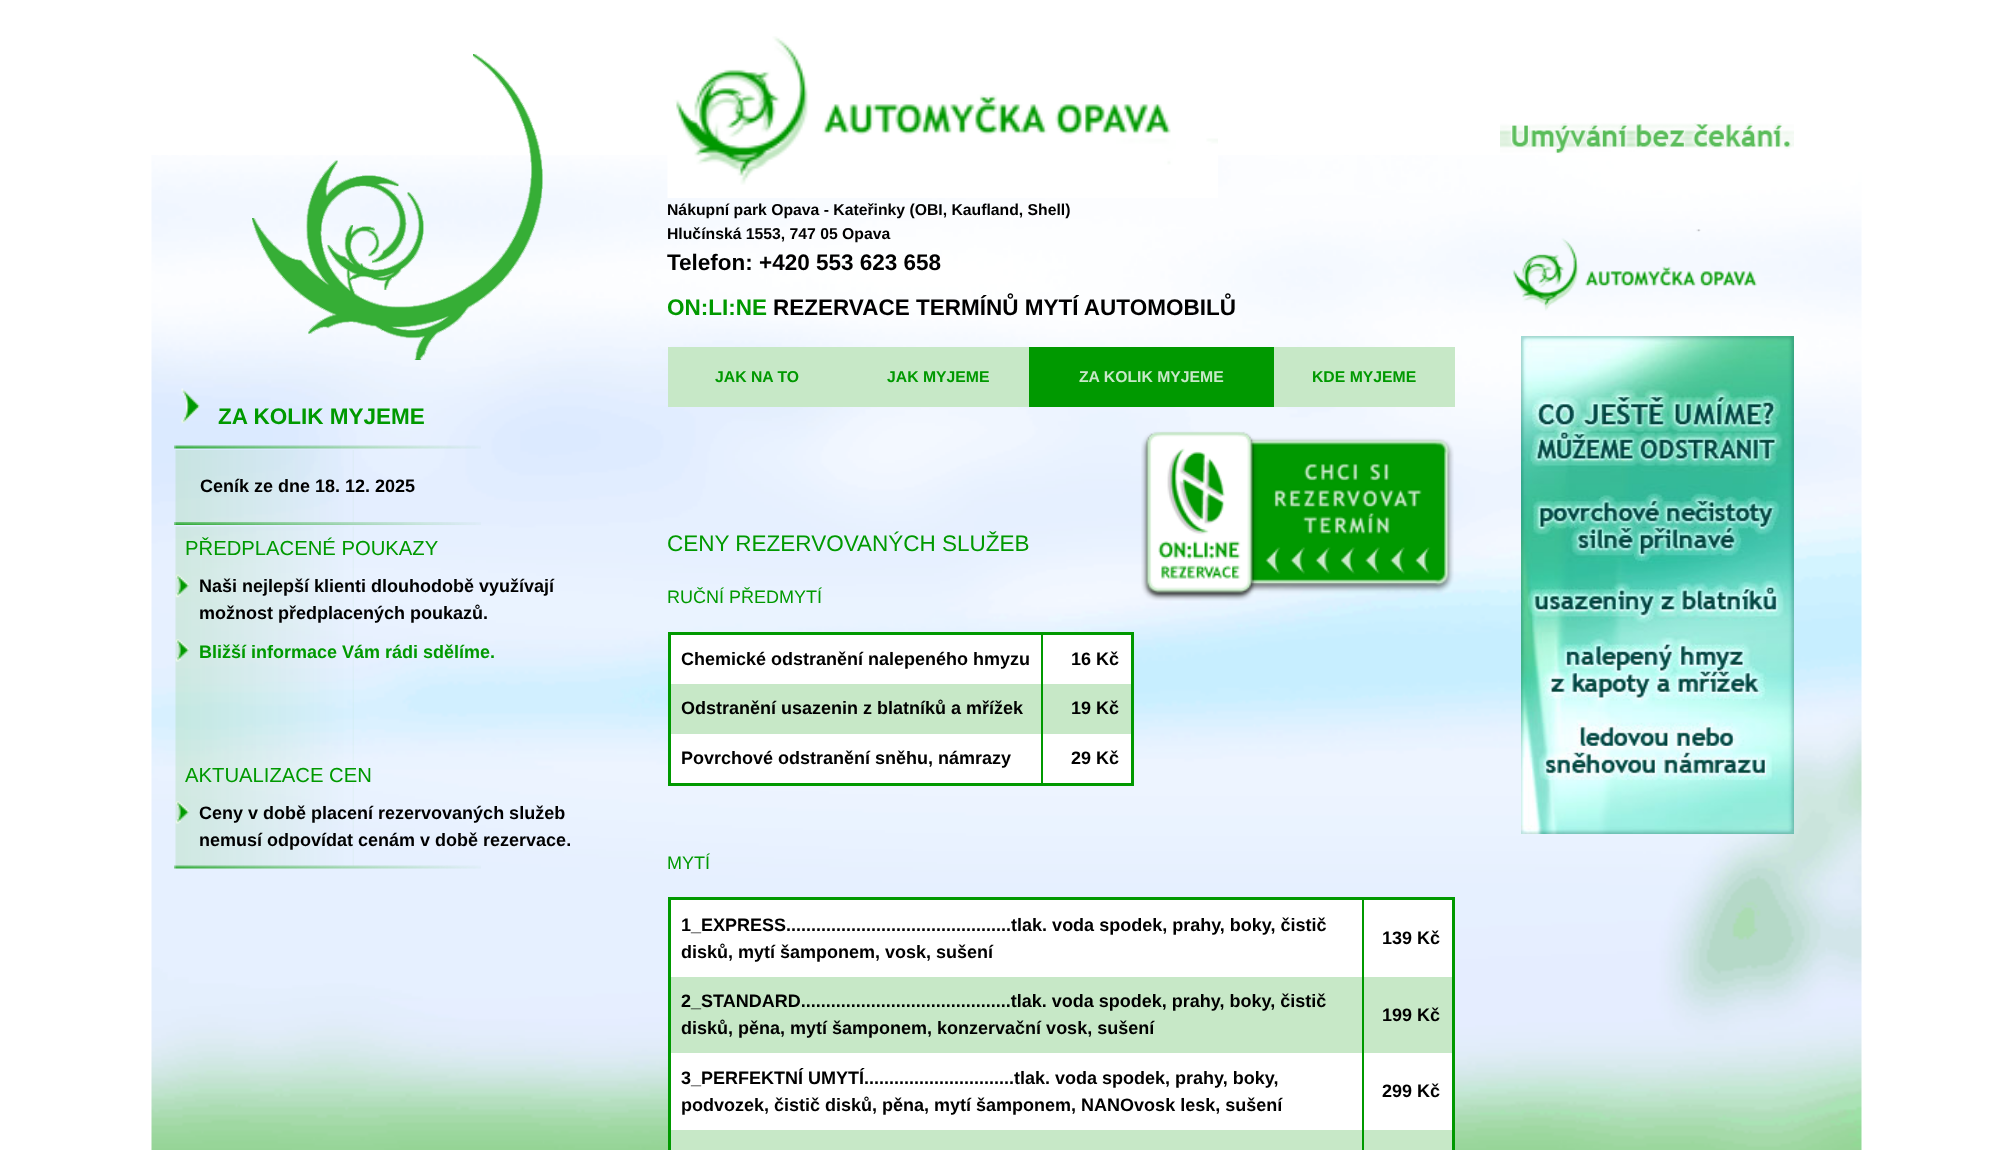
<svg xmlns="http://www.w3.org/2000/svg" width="2011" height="1150">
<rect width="100%" height="100%" fill="#fff"/>
<image x="151" y="155" width="1711" height="995" href="media/1.png"/>
<image x="252" y="54" width="291" height="306" href="media/2.png"/>
<image x="181" y="388" width="19" height="36" href="media/3.png"/>
<text x="218" y="424" style="font-family:Liberation Sans;font-size:22.5px;font-weight:bold;fill:#090">ZA KOLIK MYJEME</text>
<image x="174" y="445" width="307" height="4" href="media/4.png"/>
<image x="175" y="450" width="179" height="72" href="media/5.png"/>
<text x="200" y="492" style="font-family:Liberation Sans;font-size:18px;font-weight:bold;fill:#000">Ceník ze dne 18. 12. 2025</text>
<image x="174" y="522" width="307" height="3" href="media/6.png"/>
<image x="175" y="526" width="179" height="340" href="media/7.png"/>
<text x="185" y="555" style="font-family:Liberation Sans;font-size:20.25px;fill:#090">PŘEDPLACENÉ POUKAZY</text>
<image x="175" y="574" width="14" height="24" href="media/8.png"/>
<text x="199" y="592" style="font-family:Liberation Sans;font-size:18px;font-weight:bold;fill:#000">Naši nejlepší klienti dlouhodobě využívají</text>
<text x="199" y="619" style="font-family:Liberation Sans;font-size:18px;font-weight:bold;fill:#000">možnost předplacených poukazů.</text>
<image x="175" y="639" width="14" height="23" href="media/9.png"/>
<text x="199" y="658" style="font-family:Liberation Sans;font-size:18px;font-weight:bold;fill:#090">Bližší informace Vám rádi sdělíme.</text>
<text x="185" y="782" style="font-family:Liberation Sans;font-size:20.25px;fill:#090">AKTUALIZACE CEN</text>
<image x="175" y="801" width="14" height="23" href="media/10.png"/>
<text x="199" y="819" style="font-family:Liberation Sans;font-size:18px;font-weight:bold;fill:#000">Ceny v době placení rezervovaných služeb</text>
<text x="199" y="846" style="font-family:Liberation Sans;font-size:18px;font-weight:bold;fill:#000">nemusí odpovídat cenám v době rezervace.</text>
<image x="174" y="865" width="307" height="4" href="media/11.png"/>
<image x="667" y="36" width="551" height="162" href="media/12.png"/>
<text x="667" y="215" style="font-family:Liberation Sans;font-size:15.75px;font-weight:bold;fill:#000">Nákupní park Opava - Kateřinky (OBI, Kaufland, Shell)</text>
<text x="667" y="239" style="font-family:Liberation Sans;font-size:15.75px;font-weight:bold;fill:#000">Hlučínská 1553, 747 05 Opava</text>
<text x="667" y="270" style="font-family:Liberation Sans;font-size:22.5px;font-weight:bold;fill:#000">Telefon: +420 553 623 658</text>
<text x="667" y="315" style="font-family:Liberation Sans;font-size:22.5px;font-weight:bold;fill:#090">ON:LI:NE</text>
<text x="773" y="315" style="font-family:Liberation Sans;font-size:22.5px;font-weight:bold;fill:#000">REZERVACE TERMÍNŮ MYTÍ AUTOMOBILŮ</text>
<rect x="668" y="347" width="361" height="60" fill="#c7e8c7"/>
<text x="715" y="382" style="font-family:Liberation Sans;font-size:15.75px;font-weight:bold;fill:#090">JAK NA TO</text>
<text x="887" y="382" style="font-family:Liberation Sans;font-size:15.75px;font-weight:bold;fill:#090">JAK MYJEME</text>
<rect x="1029" y="347" width="245" height="60" fill="#090"/>
<text x="1079" y="382" style="font-family:Liberation Sans;font-size:15.75px;font-weight:bold;fill:#c7e8c7">ZA KOLIK MYJEME</text>
<rect x="1274" y="347" width="181" height="60" fill="#c7e8c7"/>
<text x="1312" y="382" style="font-family:Liberation Sans;font-size:15.75px;font-weight:bold;fill:#090">KDE MYJEME</text>
<text x="667" y="551" style="font-family:Liberation Sans;font-size:22.5px;fill:#090">CENY REZERVOVANÝCH SLUŽEB</text>
<image x="1141" y="431" width="313" height="170" href="media/13.png"/>
<text x="667" y="603" style="font-family:Liberation Sans;font-size:18px;fill:#090">RUČNÍ PŘEDMYTÍ</text>
<rect x="671" y="635" width="460" height="148" fill="#fff"/>
<rect x="671" y="684" width="460" height="50" fill="#c7e8c7"/>
<rect x="1041" y="632" width="2" height="153" fill="#090"/>
<rect x="668" y="632" width="466" height="3" fill="#090"/>
<rect x="1131" y="632" width="3" height="154" fill="#090"/>
<rect x="668" y="783" width="466" height="3" fill="#090"/>
<rect x="668" y="632" width="3" height="154" fill="#090"/>
<text x="681" y="665" style="font-family:Liberation Sans;font-size:18px;font-weight:bold;fill:#000">Chemické odstranění nalepeného hmyzu</text>
<text x="1071" y="665" style="font-family:Liberation Sans;font-size:18px;font-weight:bold;fill:#000">16 Kč</text>
<text x="681" y="714" style="font-family:Liberation Sans;font-size:18px;font-weight:bold;fill:#000">Odstranění usazenin z blatníků a mřížek</text>
<text x="1071" y="714" style="font-family:Liberation Sans;font-size:18px;font-weight:bold;fill:#000">19 Kč</text>
<text x="681" y="764" style="font-family:Liberation Sans;font-size:18px;font-weight:bold;fill:#000">Povrchové odstranění sněhu, námrazy</text>
<text x="1071" y="764" style="font-family:Liberation Sans;font-size:18px;font-weight:bold;fill:#000">29 Kč</text>
<text x="667" y="869" style="font-family:Liberation Sans;font-size:18px;fill:#090">MYTÍ</text>
<rect x="671" y="900" width="781" height="230" fill="#fff"/>
<rect x="671" y="1130" width="781" height="20" fill="#c7e8c7"/>
<rect x="671" y="977" width="781" height="76" fill="#c7e8c7"/>
<rect x="1362" y="897" width="2" height="253" fill="#090"/>
<rect x="668" y="897" width="787" height="3" fill="#090"/>
<rect x="1452" y="897" width="3" height="253" fill="#090"/>
<rect x="668" y="897" width="3" height="253" fill="#090"/>
<text x="681" y="931" style="font-family:Liberation Sans;font-size:18px;font-weight:bold;fill:#000">1_EXPRESS.............................................tlak. voda spodek, prahy, boky, čistič</text>
<text x="681" y="958" style="font-family:Liberation Sans;font-size:18px;font-weight:bold;fill:#000">disků, mytí šamponem, vosk, sušení</text>
<text x="1382" y="944" style="font-family:Liberation Sans;font-size:18px;font-weight:bold;fill:#000">139 Kč</text>
<text x="681" y="1007" style="font-family:Liberation Sans;font-size:18px;font-weight:bold;fill:#000">2_STANDARD..........................................tlak. voda spodek, prahy, boky, čistič</text>
<text x="681" y="1034" style="font-family:Liberation Sans;font-size:18px;font-weight:bold;fill:#000">disků, pěna, mytí šamponem, konzervační vosk, sušení</text>
<text x="1382" y="1021" style="font-family:Liberation Sans;font-size:18px;font-weight:bold;fill:#000">199 Kč</text>
<text x="681" y="1084" style="font-family:Liberation Sans;font-size:18px;font-weight:bold;fill:#000">3_PERFEKTNÍ UMYTÍ..............................tlak. voda spodek, prahy, boky,</text>
<text x="681" y="1111" style="font-family:Liberation Sans;font-size:18px;font-weight:bold;fill:#000">podvozek, čistič disků, pěna, mytí šamponem, NANOvosk lesk, sušení</text>
<text x="1382" y="1097" style="font-family:Liberation Sans;font-size:18px;font-weight:bold;fill:#000">299 Kč</text>
<image x="1500" y="123" width="294" height="31" href="media/14.png"/>
<image x="1512" y="229" width="245" height="82" href="media/15.png"/>
<image x="1521" y="336" width="273" height="498" href="media/16.png"/>
</svg>
